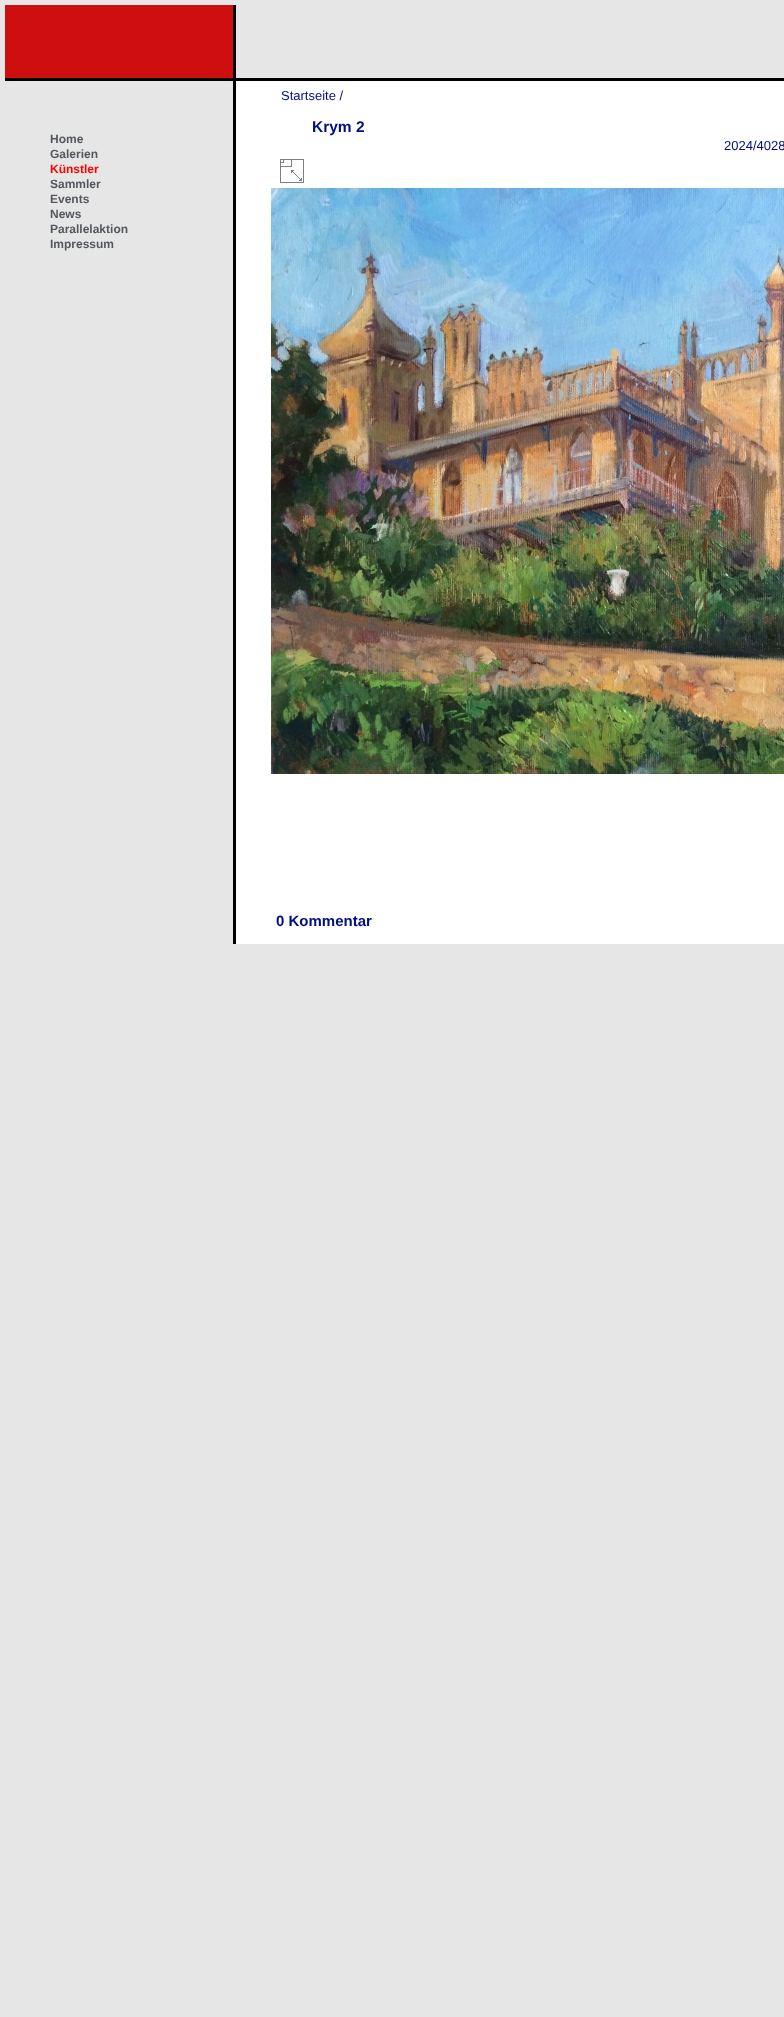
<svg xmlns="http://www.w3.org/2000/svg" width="784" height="2017">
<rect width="100%" height="100%" fill="#e6e6e6"/>
<rect x="5" y="5" width="228" height="73" fill="#cf0f0f"/>
<rect x="233" y="5" width="3" height="73" fill="#000"/>
<rect x="5" y="78" width="779" height="3" fill="#000"/>
<text x="50" y="143" style="font-family:Liberation Sans;font-size:12px;font-weight:bold;fill:#54585e">Home</text>
<text x="50" y="158" style="font-family:Liberation Sans;font-size:12px;font-weight:bold;fill:#54585e">Galerien</text>
<text x="50" y="173" style="font-family:Liberation Sans;font-size:12px;font-weight:bold;fill:#f00">Künstler</text>
<text x="50" y="188" style="font-family:Liberation Sans;font-size:12px;font-weight:bold;fill:#54585e">Sammler</text>
<text x="50" y="203" style="font-family:Liberation Sans;font-size:12px;font-weight:bold;fill:#54585e">Events</text>
<text x="50" y="218" style="font-family:Liberation Sans;font-size:12px;font-weight:bold;fill:#54585e">News</text>
<text x="50" y="233" style="font-family:Liberation Sans;font-size:12px;font-weight:bold;fill:#54585e">Parallelaktion</text>
<text x="50" y="248" style="font-family:Liberation Sans;font-size:12px;font-weight:bold;fill:#54585e">Impressum</text>
<rect x="236" y="81" width="548" height="863" fill="#fff"/>
<rect x="233" y="78" width="3" height="866" fill="#000"/>
<text x="281" y="100" style="font-family:Liberation Sans;font-size:13px;fill:#000e82">Startseite /</text>
<text x="312" y="132" style="font-family:Liberation Sans;font-size:15.5px;font-weight:bold;fill:#000e82">Krym 2</text>
<text x="724" y="150" style="font-family:Liberation Sans;font-size:13px;fill:#000e82">2024/4028</text>
<image x="280" y="159" width="24" height="24" href="media/1.png"/>
<image x="271" y="188" width="513" height="586" href="media/2.png"/>
<text x="276" y="926" style="font-family:Liberation Sans;font-size:15px;font-weight:bold;fill:#000e82">0 Kommentar</text>
</svg>
